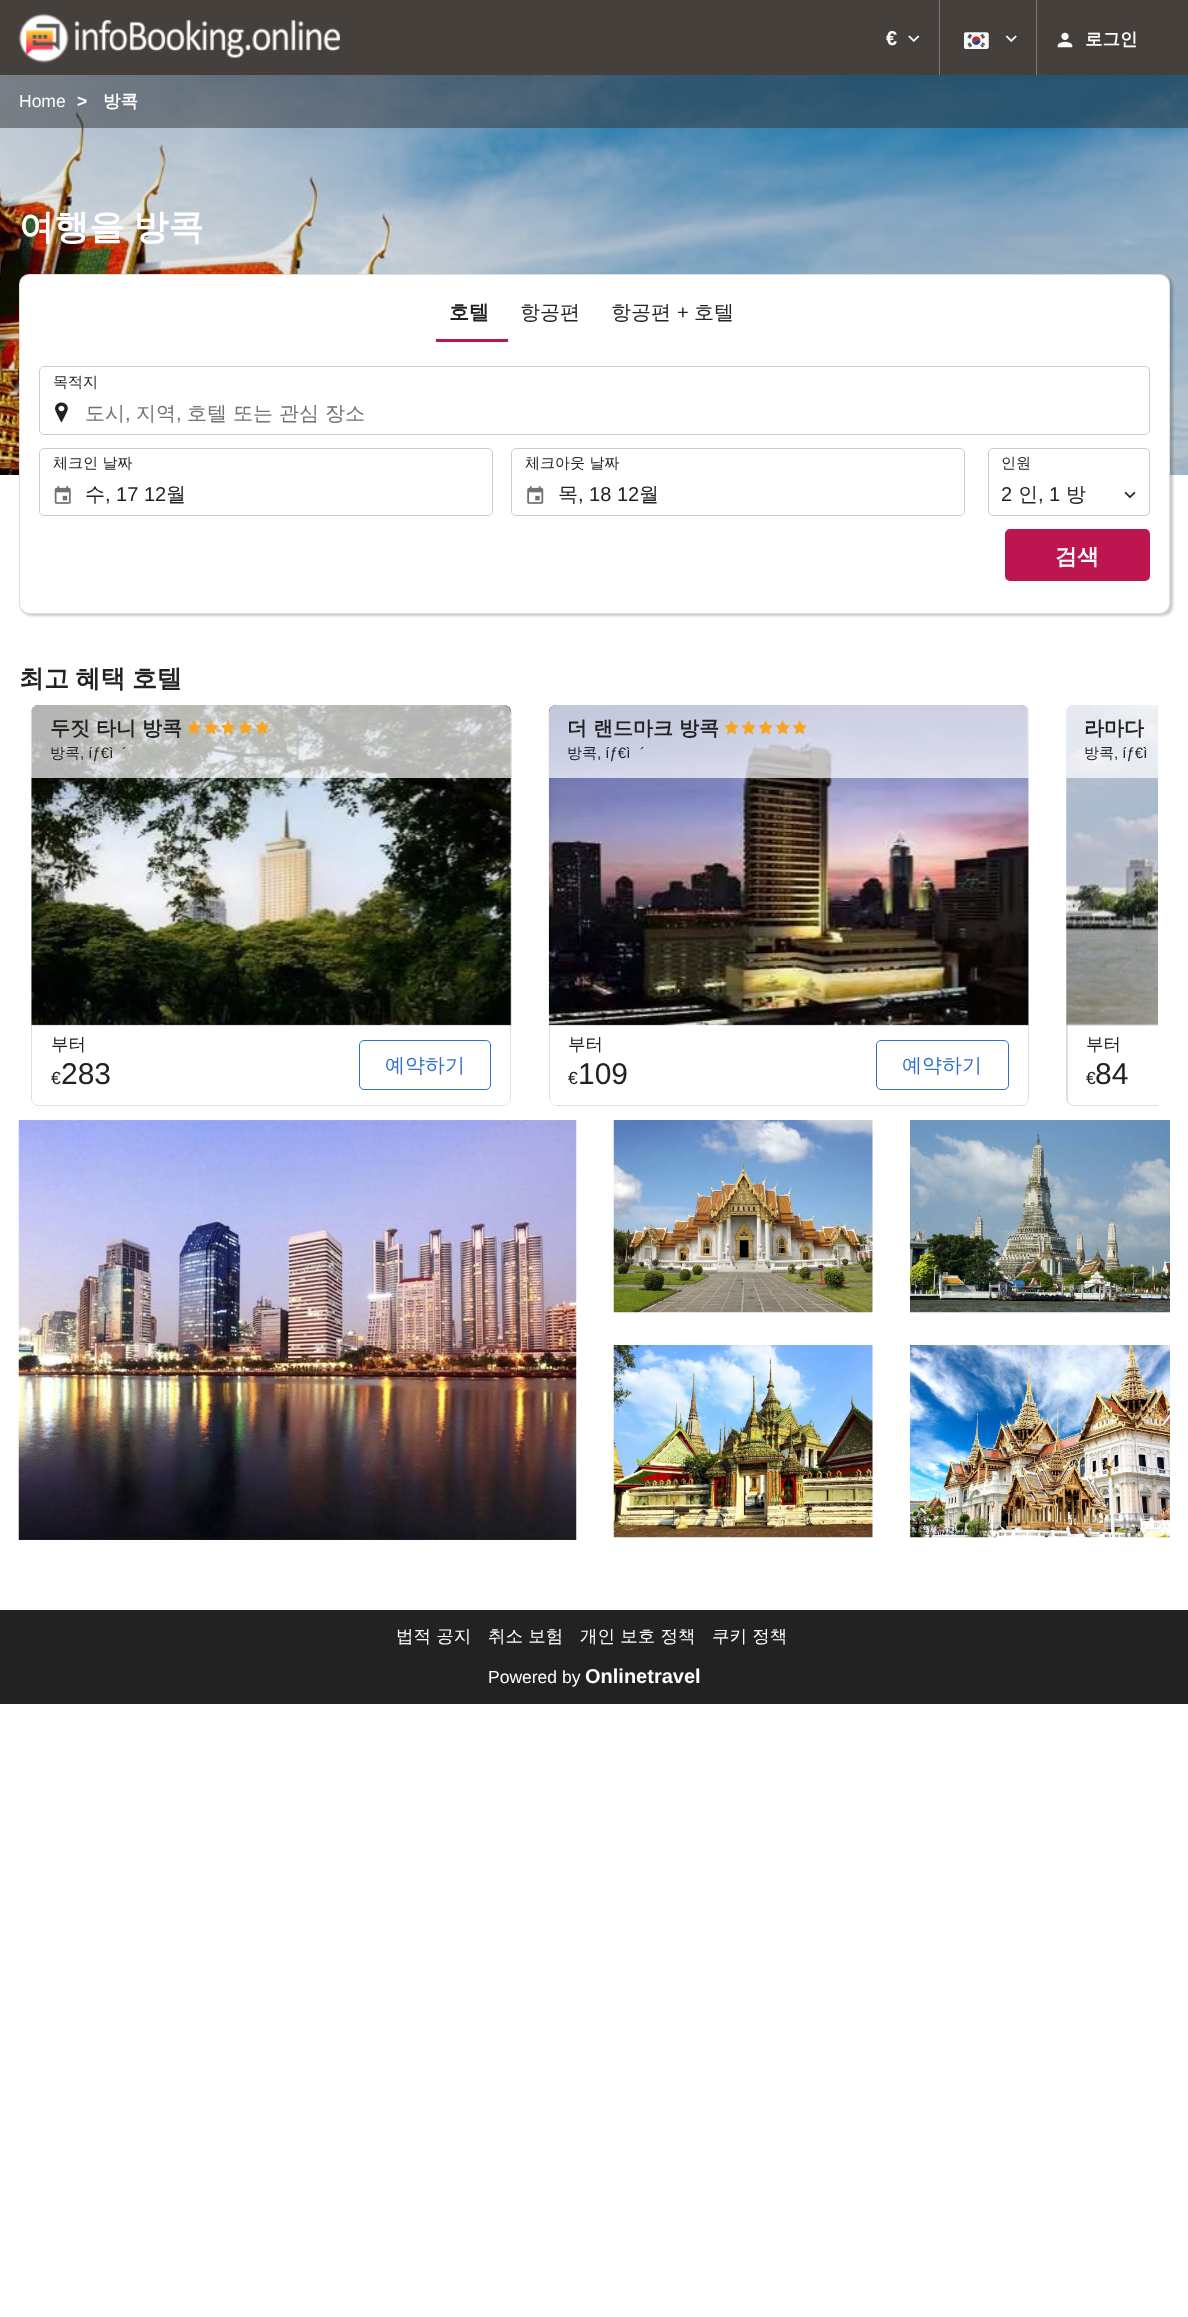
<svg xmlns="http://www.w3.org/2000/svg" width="1188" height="2317">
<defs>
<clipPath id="clip1"><rect x="31" y="705" width="1127" height="401"/></clipPath>
</defs>
<rect width="100%" height="100%" fill="#fff"/>
<rect width="1188" height="75" fill="#46403c"/>
<image x="18" y="13" width="322" height="50" href="media/1.png"/>
<rect x="939" width="1" height="75" fill="#7e7977"/>
<text x="886" y="45" style="font-family:Liberation Sans;font-size:20px;font-weight:bold;fill:#fff">€</text>
<image x="908" y="35" width="12" height="7" href="media/2.png"/>
<rect x="1036" width="1" height="75" fill="#7e7977"/>
<image x="964" y="32" width="25" height="17" href="media/3.png"/>
<image x="1005" y="35" width="12" height="7" href="media/4.png"/>
<image x="1057" y="32" width="16" height="16" href="media/5.png"/>
<text x="1085" y="45" style="font-family:WenQuanYi Zen Hei;font-size:17.5px;font-weight:bold;fill:#fff">로그인</text>
<image x="0" y="75" width="1188" height="400" href="media/6.png"/>
<rect y="75" width="1188" height="53" fill="#30323580"/>
<text x="19" y="107" style="font-family:Liberation Sans;font-size:17.5px;fill:#fff">Home</text>
<text x="77" y="107" style="font-family:Liberation Sans;font-size:17.5px;font-weight:bold;fill:#fff">&gt;</text>
<text x="103" y="107" style="font-family:WenQuanYi Zen Hei;font-size:17.5px;font-weight:bold;fill:#fff">방콕</text>
<text x="19" y="239" word-spacing="-1" style="font-family:WenQuanYi Zen Hei;font-size:35px;font-weight:bold;fill:#fff">여행을 방콕</text>
<rect x="21" y="276" width="1152" height="340" rx="10" fill="#00000033" filter="blur(1px)"/>
<rect x="19" y="274" width="1151" height="340" rx="10" fill="#dfdfdf"/>
<path d="M30 275h1129c5.5 0 10 4.5 10 10v81h-1149v-81c0-5.5 4.5-10 10-10z" fill="#fff"/>
<rect x="436" y="339" width="72" height="3" fill="#bd1550"/>
<text x="449" y="319" style="font-family:WenQuanYi Zen Hei;font-size:20px;font-weight:bold;fill:#222">호텔</text>
<text x="520" y="319" style="font-family:WenQuanYi Zen Hei;font-size:20px;font-weight:500;fill:#222">항공편</text>
<text x="611" y="319" style="font-family:WenQuanYi Zen Hei;font-size:20px;font-weight:500;fill:#222">항공편</text>
<text x="677" y="319" style="font-family:Liberation Sans;font-size:20px;fill:#222">+</text>
<text x="694" y="319" style="font-family:WenQuanYi Zen Hei;font-size:20px;font-weight:500;fill:#222">호텔</text>
<path d="M20 366h1149v237c0 5.5-4.5 10-10 10h-1129c-5.5 0-10-4.5-10-10z" fill="#fff"/>
<image x="55" y="402" width="13" height="21" href="media/7.png"/>
<rect x="39.5" y="366.5" width="1110" height="68" rx="4.5" fill="none" stroke="#d0cbc9"/>
<text x="53" y="387" style="font-family:WenQuanYi Zen Hei;font-size:15px;font-weight:500;fill:#222">목적지</text>
<text x="85" y="420" style="font-family:WenQuanYi Zen Hei;font-size:20px;font-weight:500;fill:#74716e">도시</text>
<text x="125" y="420" style="font-family:Liberation Sans;font-size:20px;fill:#74716e">,</text>
<text x="136" y="420" style="font-family:WenQuanYi Zen Hei;font-size:20px;font-weight:500;fill:#74716e">지역</text>
<text x="176" y="420" style="font-family:Liberation Sans;font-size:20px;fill:#74716e">,</text>
<text x="187" y="420" style="font-family:WenQuanYi Zen Hei;font-size:20px;font-weight:500;fill:#74716e">호텔 또는 관심 장소</text>
<image x="54" y="486" width="17" height="18" href="media/8.png"/>
<rect x="39.5" y="448.5" width="453" height="67" rx="4.5" fill="none" stroke="#d0cbc9"/>
<text x="53" y="468" style="font-family:WenQuanYi Zen Hei;font-size:15px;font-weight:500;fill:#222">체크인 날짜</text>
<text x="85" y="501" style="font-family:WenQuanYi Zen Hei;font-size:20px;font-weight:500;fill:#222">수</text>
<text x="105" y="501" style="font-family:Liberation Sans;font-size:20px;fill:#222">, 17 12</text>
<text x="166" y="501" style="font-family:WenQuanYi Zen Hei;font-size:20px;font-weight:500;fill:#222">월</text>
<image x="527" y="486" width="17" height="18" href="media/9.png"/>
<rect x="511.5" y="448.5" width="453" height="67" rx="4.5" fill="none" stroke="#d0cbc9"/>
<text x="525" y="468" style="font-family:WenQuanYi Zen Hei;font-size:15px;font-weight:500;fill:#222">체크아웃 날짜</text>
<text x="558" y="501" style="font-family:WenQuanYi Zen Hei;font-size:20px;font-weight:500;fill:#222">목</text>
<text x="578" y="501" style="font-family:Liberation Sans;font-size:20px;fill:#222">, 18 12</text>
<text x="639" y="501" style="font-family:WenQuanYi Zen Hei;font-size:20px;font-weight:500;fill:#222">월</text>
<rect x="988.5" y="448.5" width="161" height="67" rx="4.5" fill="none" stroke="#d0cbc9"/>
<text x="1001" y="468" style="font-family:WenQuanYi Zen Hei;font-size:15px;font-weight:500;fill:#222">인원</text>
<text x="1001" y="501" style="font-family:Liberation Sans;font-size:20px;fill:#222">2</text>
<text x="1018" y="501" style="font-family:WenQuanYi Zen Hei;font-size:20px;font-weight:500;fill:#222">인</text>
<text x="1038" y="501" style="font-family:Liberation Sans;font-size:20px;fill:#222">, 1</text>
<text x="1066" y="501" style="font-family:WenQuanYi Zen Hei;font-size:20px;font-weight:500;fill:#222">방</text>
<image x="1124" y="491" width="12" height="8" href="media/10.png"/>
<rect x="1005" y="529" width="145" height="52" rx="5" fill="#bd1550"/>
<text x="1055" y="564" style="font-family:WenQuanYi Zen Hei;font-size:22px;font-weight:bold;fill:#fff">검색</text>
<text x="19" y="687" word-spacing="-1" style="font-family:WenQuanYi Zen Hei;font-size:25px;font-weight:bold;fill:#222">최고 혜택 호텔</text>
<path d="M32 1025h-1v73c0 4 3 7 7 8h465c4 0 8-4 8-8v-73h-1v74c0 3-3 6-6 6h-465c-4 0-7-3-7-6z" fill="#dfdfdf"/>
<image x="31" y="705" width="481" height="321" href="media/11.png"/>
<path d="M39 705h464c4.5 0 8 3.5 8 8v65h-480v-65c0-4.5 3.5-8 8-8z" fill="#ffffffb3"/>
<text x="50" y="735" style="font-family:WenQuanYi Zen Hei;font-size:20px;font-weight:bold;fill:#222">두짓 타니 방콕</text>
<image x="186" y="720" width="84" height="15" href="media/12.png"/>
<text x="50" y="758" style="font-family:WenQuanYi Zen Hei;font-size:15px;font-weight:500;fill:#222">방콕</text>
<text x="80" y="758" style="font-family:Liberation Sans;font-size:15px;fill:#222">, íƒ€ì</text>
<text x="122" y="758" style="font-family:Liberation Sans;font-size:15px;fill:#222">´</text>
<text x="51" y="1050" style="font-family:WenQuanYi Zen Hei;font-size:17.5px;font-weight:500;fill:#222">부터</text>
<text x="51" y="1084" style="font-family:Liberation Sans;font-size:17.5px;fill:#222">€</text>
<text x="61" y="1084" style="font-family:Liberation Sans;font-size:30px;fill:#222">283</text>
<rect x="359.5" y="1040.5" width="131" height="49" rx="4.5" fill="none" stroke="#3171c9"/>
<text x="385" y="1072" style="font-family:WenQuanYi Zen Hei;font-size:20px;font-weight:500;fill:#3171c9">예약하기</text>
<path d="M550 1025h-1v73c0 4 4 8 8 8h465c4-1 7-4 7-8v-73h-1v74c0 3-3 6-7 6h-465c-3 0-6-3-6-6z" fill="#dfdfdf"/>
<image x="548" y="705" width="481" height="321" href="media/13.png"/>
<path d="M557 705h464c4.5 0 8 3.5 8 8v65h-480v-65c0-4.5 3.5-8 8-8z" fill="#ffffffb3"/>
<text x="567" y="735" style="font-family:WenQuanYi Zen Hei;font-size:20px;font-weight:bold;fill:#222">더 랜드마크 방콕</text>
<image x="724" y="720" width="83" height="15" href="media/14.png"/>
<text x="567" y="758" style="font-family:WenQuanYi Zen Hei;font-size:15px;font-weight:500;fill:#222">방콕</text>
<text x="597" y="758" style="font-family:Liberation Sans;font-size:15px;fill:#222">, íƒ€ì</text>
<text x="640" y="758" style="font-family:Liberation Sans;font-size:15px;fill:#222">´</text>
<text x="568" y="1050" style="font-family:WenQuanYi Zen Hei;font-size:17.5px;font-weight:500;fill:#222">부터</text>
<text x="568" y="1084" style="font-family:Liberation Sans;font-size:17.5px;fill:#222">€</text>
<text x="578" y="1084" style="font-family:Liberation Sans;font-size:30px;fill:#222">109</text>
<rect x="876.5" y="1040.5" width="132" height="49" rx="4.5" fill="none" stroke="#3171c9"/>
<text x="902" y="1072" style="font-family:WenQuanYi Zen Hei;font-size:20px;font-weight:500;fill:#3171c9">예약하기</text>
<g clip-path="url(#clip1)">
<path d="M1068 1025h-2v73c0 4 3 7 7 8h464c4 0 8-4 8-8v-73h-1v74c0 3-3 6-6 6h-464c-4 0-6-3-6-6z" fill="#dfdfdf"/>
</g>
<image x="1066" y="705" width="92" height="321" href="media/15.png"/>
<path d="M1074 705h84v73h-92v-65c0-4.5 3.5-8 8-8z" fill="#ffffffb3"/>
<text x="1084" y="735" style="font-family:WenQuanYi Zen Hei;font-size:20px;font-weight:bold;fill:#222">라마다</text>
<text x="1084" y="758" style="font-family:WenQuanYi Zen Hei;font-size:15px;font-weight:500;fill:#222">방콕</text>
<text x="1114" y="758" style="font-family:Liberation Sans;font-size:15px;fill:#222">, íƒ€ì</text>
<text x="1086" y="1050" style="font-family:WenQuanYi Zen Hei;font-size:17.5px;font-weight:500;fill:#222">부터</text>
<text x="1086" y="1084" style="font-family:Liberation Sans;font-size:17.5px;fill:#222">€</text>
<text x="1095" y="1084" style="font-family:Liberation Sans;font-size:30px;fill:#222">84</text>
<image x="18" y="1120" width="559" height="420" href="media/16.png"/>
<image x="613" y="1120" width="260" height="193" href="media/17.png"/>
<image x="910" y="1120" width="260" height="193" href="media/18.png"/>
<image x="613" y="1345" width="260" height="193" href="media/19.png"/>
<image x="910" y="1345" width="260" height="193" href="media/20.png"/>
<rect y="1610" width="1188" height="94" fill="#222"/>
<text x="396" y="1642" style="font-family:WenQuanYi Zen Hei;font-size:17.5px;font-weight:500;fill:#fff">법적 공지</text>
<text x="488" y="1642" style="font-family:WenQuanYi Zen Hei;font-size:17.5px;font-weight:500;fill:#fff">취소 보험</text>
<text x="580" y="1642" style="font-family:WenQuanYi Zen Hei;font-size:17.5px;font-weight:500;fill:#fff">개인 보호 정책</text>
<text x="712" y="1642" style="font-family:WenQuanYi Zen Hei;font-size:17.5px;font-weight:500;fill:#fff">쿠키 정책</text>
<text x="488" y="1683" style="font-family:Liberation Sans;font-size:17.5px;fill:#fff">Powered by</text>
<text x="585" y="1683" style="font-family:Liberation Sans;font-size:20px;font-weight:bold;fill:#fff">Onlinetravel</text>
</svg>
